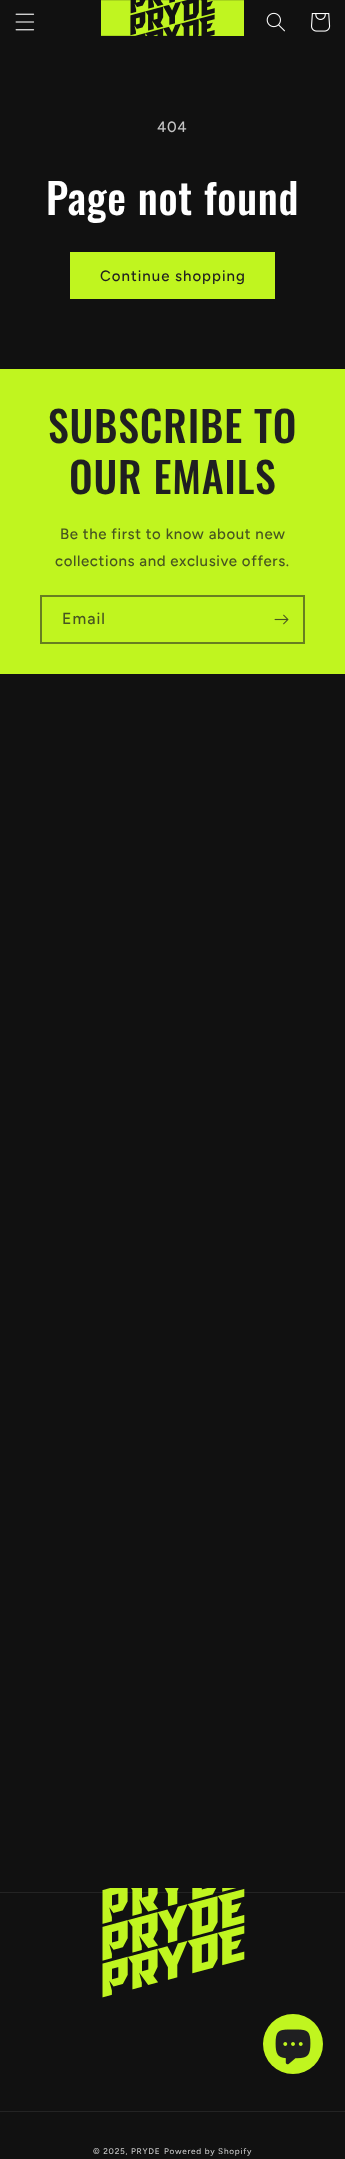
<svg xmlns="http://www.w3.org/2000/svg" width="345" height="2159">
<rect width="100%" height="100%" fill="#111"/>
<image x="15" y="13" width="20" height="18" href="media/1.png"/>
<image x="101" y="0" width="143" height="36" href="media/2.png"/>
<image x="266" y="12" width="19" height="20" href="media/3.png"/>
<image x="311" y="13" width="20" height="19" href="media/4.png"/>
<text x="157" y="132" style="font-family:Figtree;font-size:15px;font-weight:500;letter-spacing:0.6px;fill:#c4c4c4">404</text>
<text x="46" y="215" style="font-family:Oswald;font-size:42px;font-weight:500;letter-spacing:0.8px;fill:#fff">Page not found</text>
<rect x="70" y="252" width="205" height="47" fill="#c0f51f"/>
<text x="100" y="281" style="font-family:Figtree;font-size:15px;font-weight:500;letter-spacing:1px;fill:#1f1f21">Continue shopping</text>
<rect y="369" width="345" height="305" fill="#c0f51f"/>
<text x="48" y="443" style="font-family:Oswald;font-size:42px;font-weight:500;letter-spacing:0.8px;fill:#1f1f21">SUBSCRIBE TO</text>
<text x="69" y="494" style="font-family:Oswald;font-size:42px;font-weight:500;letter-spacing:0.8px;fill:#1f1f21">OUR EMAILS</text>
<text x="60" y="539" style="font-family:Figtree;font-size:15px;font-weight:500;letter-spacing:0.6px;fill:#475521">Be the first to know about new</text>
<text x="55" y="566" style="font-family:Figtree;font-size:15px;font-weight:500;letter-spacing:0.6px;fill:#475521">collections and exclusive offers.</text>
<rect x="41" y="596" width="263" height="47" fill="none" stroke="#677f20" stroke-width="2"/>
<text x="62" y="624" style="font-family:Figtree;font-size:16px;font-weight:500;letter-spacing:1px;fill:#475521">Email</text>
<image x="274" y="614" width="15" height="11" href="media/5.png"/>
<circle cx="293" cy="2044" r="30" fill="#c0f51f"/>
<image x="275" y="2029" width="36" height="36" href="media/6.png"/>
<rect y="1892" width="345" height="1" fill="#242424"/>
<image x="102" y="1888" width="143" height="110" href="media/7.png"/>
<rect y="2111" width="345" height="1" fill="#242424"/>
<text x="93" y="2154" style="font-family:Figtree;font-size:8.25px;font-weight:500;letter-spacing:0.75px;fill:#c4c4c4">© 2025, PRYDE</text>
<text x="164" y="2154" style="font-family:Figtree;font-size:8.25px;font-weight:500;letter-spacing:0.75px;fill:#c4c4c4">Powered by Shopify</text>
</svg>
